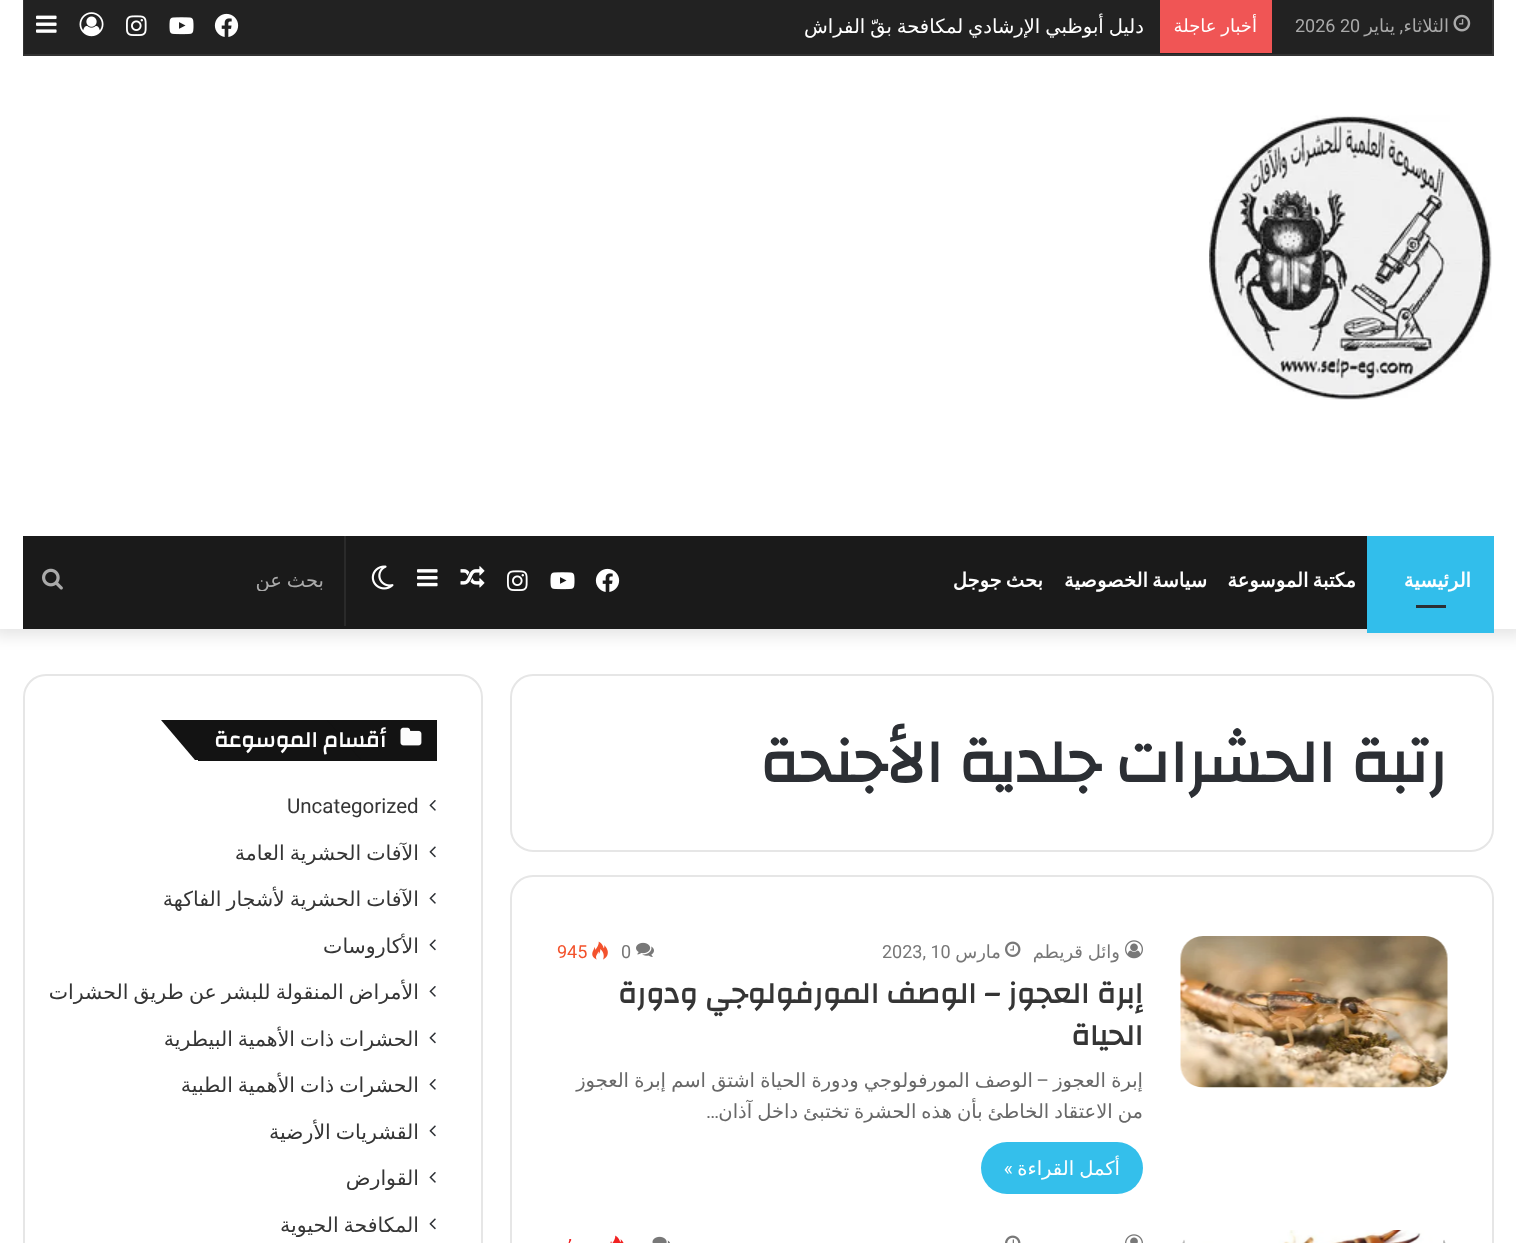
<svg xmlns="http://www.w3.org/2000/svg" width="1516" height="1243">
<defs>
<clipPath id="clip1"><rect x="804" width="341" height="53"/></clipPath>
<clipPath id="clip2"><rect x="75" y="569" width="249" height="22"/></clipPath>
</defs>
<rect width="100%" height="100%" fill="#fff"/>
<rect x="-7" y="-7" width="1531" height="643" fill="#0000001a" filter="blur(7.5px)"/>
<rect width="1516" height="629" fill="#fff"/>
<rect x="23" width="1471" height="56" fill="#222"/>
<path d="M1494 0v56l-2-2v-54z" fill="#343434"/>
<path d="M1494 56h-1472l2-2h1468z" fill="#ffffff14"/>
<path d="M22 56v-56h2v54z" fill="#ffffff14"/>
<image x="1453" y="14" width="18" height="18" href="media/1.png"/>
<text x="1449" y="32" style="font-family:DejaVu Sans;font-size:18px;direction:rtl;fill:#aaa">الثلاثاء</text>
<text x="1403" y="32" style="font-family:Roboto;font-size:18px;direction:rtl;fill:#aaa">,</text>
<text x="1395" y="32" style="font-family:DejaVu Sans;font-size:18px;direction:rtl;fill:#aaa">يناير</text>
<text x="1295" y="32" style="font-family:Roboto;font-size:18px;fill:#aaa">2026 20</text>
<rect x="1160" width="112" height="53" fill="#f05555"/>
<text x="1257" y="32" word-spacing="-1" style="font-family:DejaVu Sans;font-size:18px;direction:rtl;fill:#fff">أخبار عاجلة</text>
<g clip-path="url(#clip1)">
<text x="1144" y="33" word-spacing="-1.25" style="font-family:DejaVu Sans;font-size:19.5px;direction:rtl;fill:#fff">دليل أبوظبي الإرشادي لمكافحة بقّ الفراش</text>
</g>
<image x="214" y="13" width="25" height="24" href="media/2.png"/>
<image x="169" y="17" width="25" height="18" href="media/3.png"/>
<image x="126" y="15" width="21" height="21" href="media/4.png"/>
<image x="79" y="12" width="25" height="25" href="media/5.png"/>
<image x="36" y="15" width="21" height="18" href="media/6.png"/>
<image x="1209" y="115" width="283" height="285" href="media/7.png"/>
<rect x="23" y="536" width="1344" height="93" fill="#1a1a1a"/>
<rect x="1367" y="536" width="127" height="97" fill="#32beeb"/>
<text x="1471" y="587" style="font-family:DejaVu Sans;font-size:19.5px;font-weight:bold;direction:rtl;fill:#fff">الرئيسية</text>
<rect x="1416" y="605" width="30" height="3" fill="#2c2f34"/>
<text x="1356" y="587" word-spacing="-2" style="font-family:DejaVu Sans;font-size:19.5px;font-weight:bold;direction:rtl;fill:#fff">مكتبة الموسوعة</text>
<text x="1207" y="587" word-spacing="-2" style="font-family:DejaVu Sans;font-size:19.5px;font-weight:bold;direction:rtl;fill:#fff">سياسة الخصوصية</text>
<text x="1043" y="587" word-spacing="-2" style="font-family:DejaVu Sans;font-size:19.5px;font-weight:bold;direction:rtl;fill:#fff">بحث جوجل</text>
<image x="595" y="568" width="25" height="24" href="media/8.png"/>
<image x="550" y="572" width="25" height="18" href="media/9.png"/>
<image x="507" y="570" width="21" height="21" href="media/10.png"/>
<image x="460" y="566" width="25" height="22" href="media/11.png"/>
<image x="417" y="569" width="21" height="18" href="media/12.png"/>
<image x="371" y="565" width="23" height="25" href="media/13.png"/>
<rect x="344" y="536" width="2" height="90" fill="#2a2a2a"/>
<g clip-path="url(#clip2)">
<text x="324" y="587" word-spacing="-1.25" style="font-family:DejaVu Sans;font-size:19.5px;direction:rtl;fill:#aaa">بحث عن</text>
</g>
<image x="42" y="568" width="21" height="22" href="media/14.png"/>
<rect x="511" y="675" width="982" height="176" rx="22" fill="none" stroke="#e6e6e6" stroke-width="2"/>
<text x="1447" y="782" style="font-family:Changa;font-size:61.5px;font-weight:bold;direction:rtl;fill:#2c2f34">رتبة الحشرات جلدية الأجنحة</text>
<rect x="511" y="876" width="982" height="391" rx="22" fill="none" stroke="#e6e6e6" stroke-width="2"/>
<image x="1180" y="936" width="268" height="152" href="media/15.png"/>
<image x="1125" y="940" width="18" height="19" href="media/16.png"/>
<text x="1120" y="958" word-spacing="-1" style="font-family:DejaVu Sans;font-size:18px;direction:rtl;fill:#777">وائل قريطم</text>
<image x="1005" y="941" width="16" height="16" href="media/17.png"/>
<text x="1001" y="958" style="font-family:DejaVu Sans;font-size:18px;direction:rtl;fill:#777">مارس</text>
<text x="882" y="958" style="font-family:Roboto;font-size:18px;fill:#777">2023, 10</text>
<image x="636" y="942" width="18" height="15" href="media/18.png"/>
<text x="621" y="958" style="font-family:Roboto;font-size:18px;fill:#777">0</text>
<image x="592" y="941" width="16" height="19" href="media/19.png"/>
<text x="557" y="958" style="font-family:Roboto;font-size:18px;fill:#f3522c">945</text>
<text x="1143" y="1003" style="font-family:Changa;font-size:30px;font-weight:bold;direction:rtl;fill:#353535">إبرة العجوز – الوصف المورفولوجي ودورة</text>
<text x="1143" y="1045" style="font-family:Changa;font-size:30px;font-weight:bold;direction:rtl;fill:#353535">الحياة</text>
<text x="1143" y="1087" word-spacing="-1" style="font-family:DejaVu Sans;font-size:19.5px;direction:rtl;fill:#686868">إبرة العجوز</text>
<text x="1033" y="1087" word-spacing="-1" style="font-family:DejaVu Sans;font-size:19.5px;direction:rtl;fill:#686868">الوصف المورفولوجي ودورة الحياة اشتق اسم إبرة العجوز</text>
<text x="1049" y="1087" style="font-family:Roboto;font-size:19.5px;direction:rtl;fill:#686868">–</text>
<text x="1143" y="1118" word-spacing="-1.25" style="font-family:DejaVu Sans;font-size:19.5px;direction:rtl;fill:#686868">من الاعتقاد الخاطئ بأن هذه الحشرة تختبئ داخل آذان</text>
<text x="719" y="1118" style="font-family:Roboto;font-size:19.5px;direction:rtl;fill:#686868">…</text>
<rect x="981" y="1142" width="162" height="52" rx="26" fill="#34bfeb"/>
<text x="1120" y="1175" word-spacing="-1" style="font-family:DejaVu Sans;font-size:19.5px;direction:rtl;fill:#fff">أكمل القراءة</text>
<text x="1013" y="1175" style="font-family:Roboto;font-size:19.5px;direction:rtl;fill:#fff">»</text>
<image x="1182" y="1230" width="264" height="13" href="media/20.png"/>
<image x="1125" y="1234" width="18" height="9" href="media/21.png"/>
<image x="1005" y="1235" width="16" height="8" href="media/22.png"/>
<image x="652" y="1236" width="18" height="7" href="media/23.png"/>
<image x="610" y="1235" width="14" height="8" href="media/24.png"/>
<text x="567" y="1252" style="font-family:DejaVu Sans;font-size:18px;fill:#f12020">٬</text>
<rect x="24" y="675" width="458" height="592" rx="22" fill="none" stroke="#e6e6e6" stroke-width="2"/>
<rect x="198" y="720" width="239" height="41" fill="#131313"/>
<path d="M161 720h166l34 40h-166z" fill="#131313"/>
<image x="400" y="727" width="22" height="19" href="media/25.png"/>
<text x="386" y="747" style="font-family:Changa;font-size:22.5px;font-weight:bold;direction:rtl;fill:#fff">أقسام الموسوعة</text>
<image x="429" y="800" width="7" height="11" href="media/26.png"/>
<text x="287" y="813" style="font-family:Roboto;font-size:20.5px;fill:#353535">Uncategorized</text>
<image x="429" y="846" width="7" height="12" href="media/27.png"/>
<text x="419" y="860" word-spacing="-1.5" style="font-family:DejaVu Sans;font-size:20.5px;direction:rtl;fill:#353535">الآفات الحشرية العامة</text>
<image x="429" y="893" width="7" height="11" href="media/26.png"/>
<text x="419" y="906" word-spacing="-1.5" style="font-family:DejaVu Sans;font-size:20.5px;direction:rtl;fill:#353535">الآفات الحشرية لأشجار الفاكهة</text>
<image x="429" y="939" width="7" height="12" href="media/27.png"/>
<text x="419" y="953" style="font-family:DejaVu Sans;font-size:20.5px;direction:rtl;fill:#353535">الأكاروسات</text>
<image x="429" y="986" width="7" height="11" href="media/26.png"/>
<text x="419" y="999" word-spacing="-1.5" style="font-family:DejaVu Sans;font-size:20.5px;direction:rtl;fill:#353535">الأمراض المنقولة للبشر عن طريق الحشرات</text>
<image x="429" y="1032" width="7" height="12" href="media/27.png"/>
<text x="419" y="1046" word-spacing="-1.5" style="font-family:DejaVu Sans;font-size:20.5px;direction:rtl;fill:#353535">الحشرات ذات الأهمية البيطرية</text>
<image x="429" y="1079" width="7" height="11" href="media/26.png"/>
<text x="419" y="1092" word-spacing="-1.5" style="font-family:DejaVu Sans;font-size:20.5px;direction:rtl;fill:#353535">الحشرات ذات الأهمية الطبية</text>
<image x="429" y="1125" width="7" height="12" href="media/27.png"/>
<text x="419" y="1139" word-spacing="-1.5" style="font-family:DejaVu Sans;font-size:20.5px;direction:rtl;fill:#353535">القشريات الأرضية</text>
<image x="429" y="1172" width="7" height="11" href="media/26.png"/>
<text x="419" y="1185" style="font-family:DejaVu Sans;font-size:20.5px;direction:rtl;fill:#353535">القوارض</text>
<image x="429" y="1218" width="7" height="12" href="media/27.png"/>
<text x="419" y="1232" word-spacing="-1.5" style="font-family:DejaVu Sans;font-size:20.5px;direction:rtl;fill:#353535">المكافحة الحيوية</text>
</svg>
